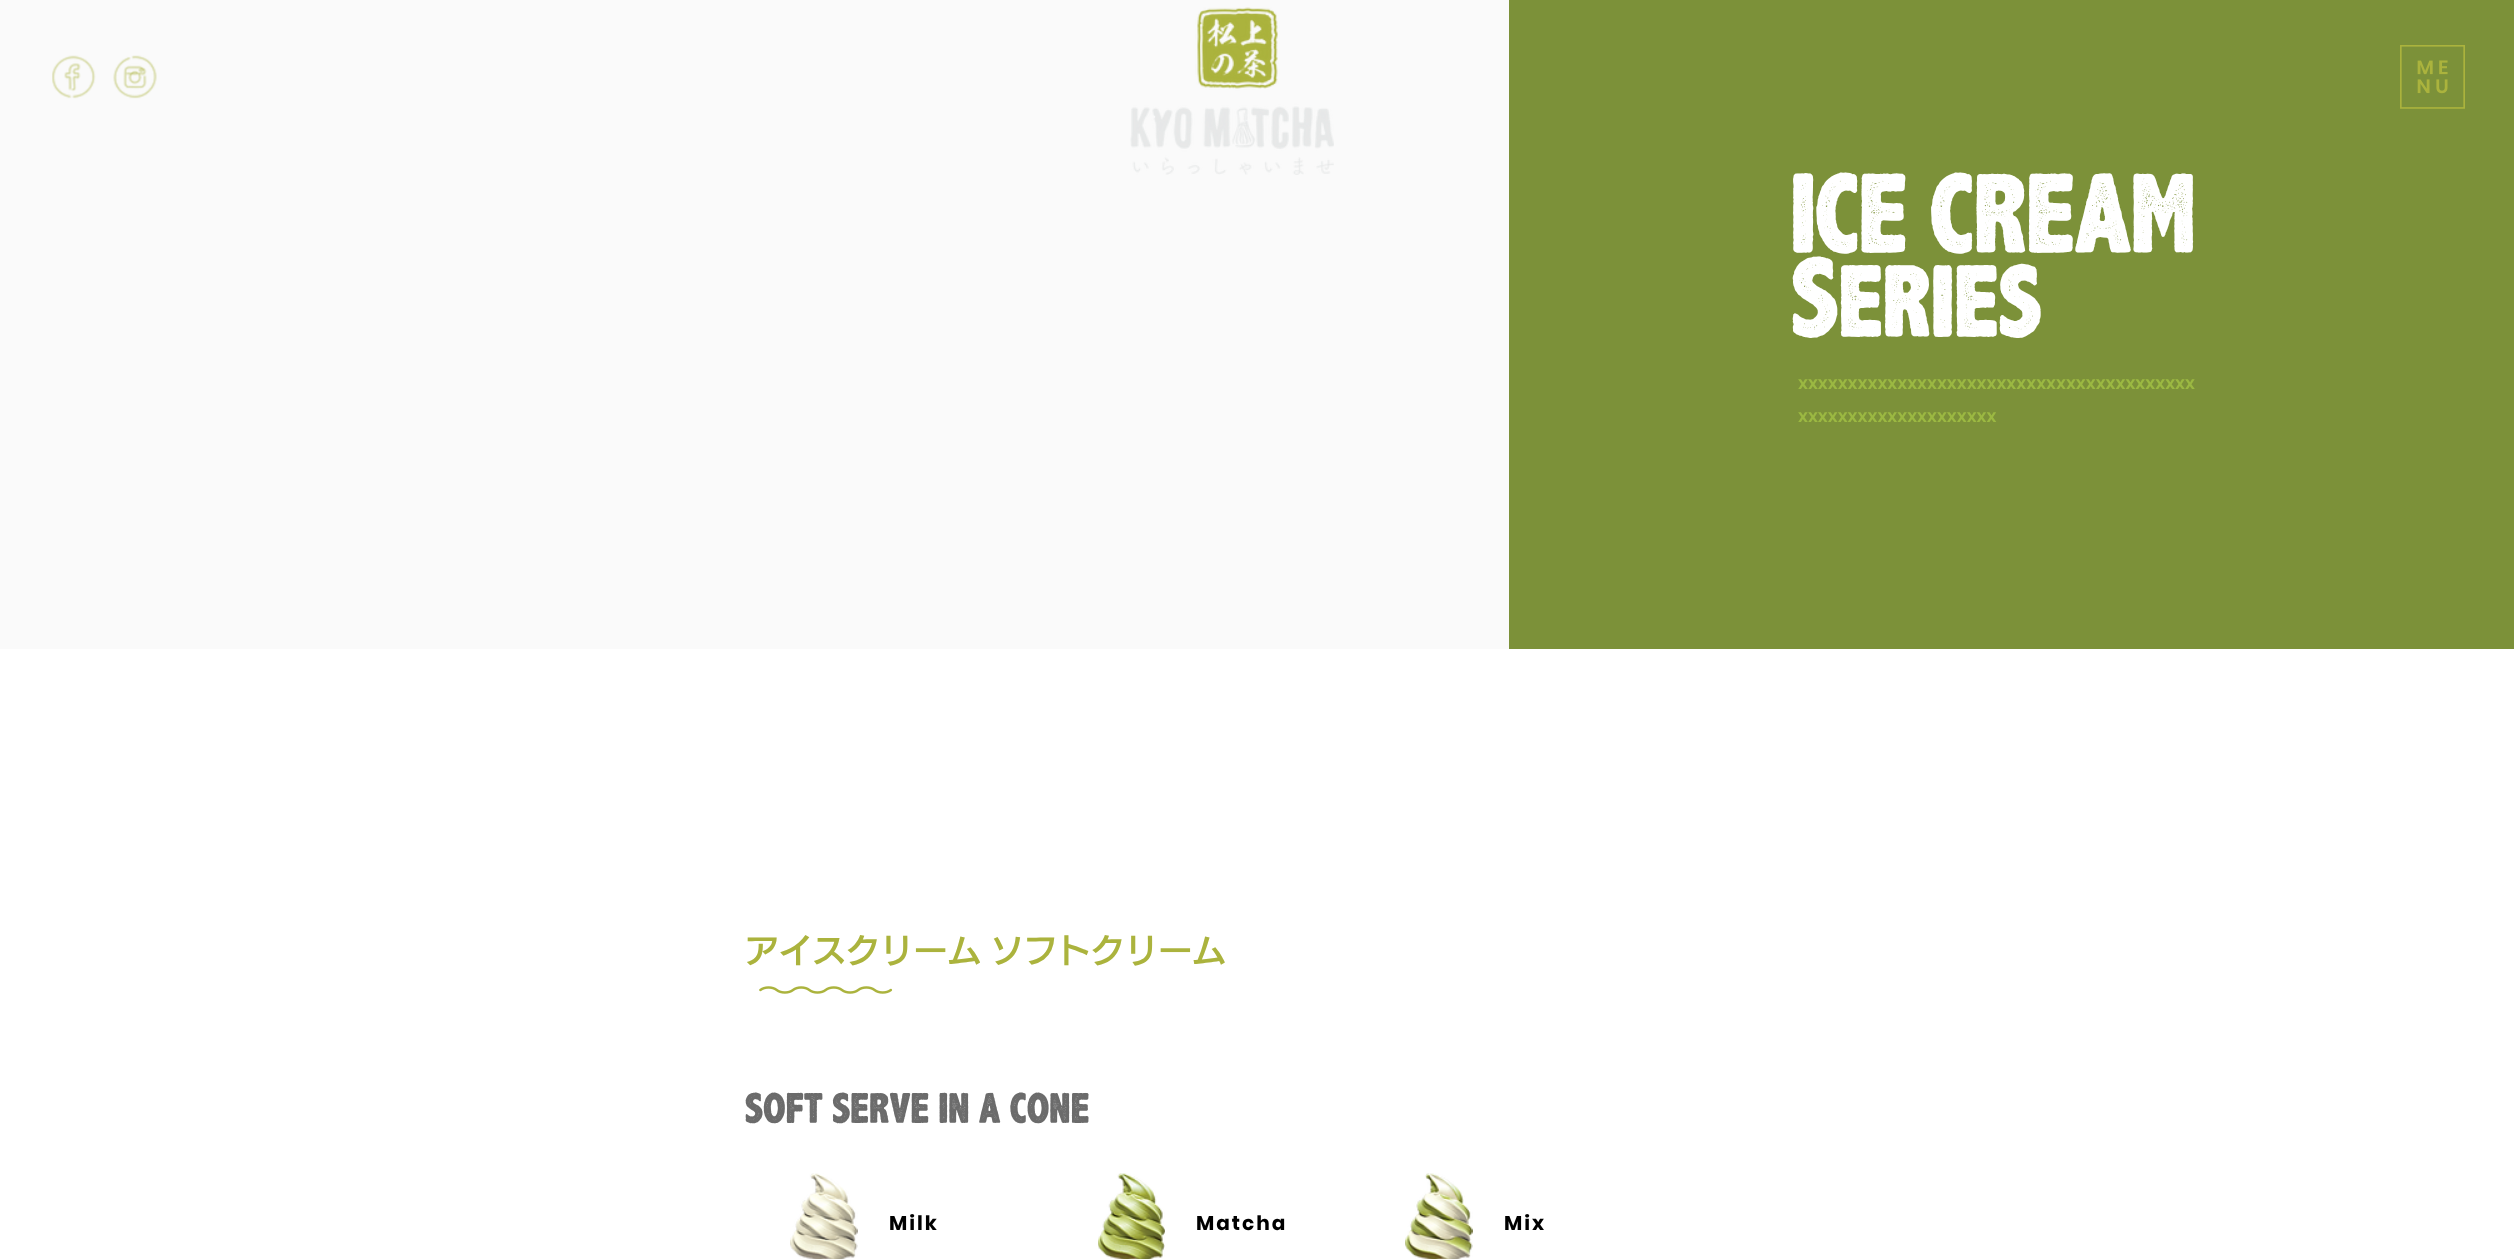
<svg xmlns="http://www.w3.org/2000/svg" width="2514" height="1259">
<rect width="100%" height="100%" fill="#fff"/>
<rect width="1509" height="649" fill="#fafafa"/>
<image x="52" y="55" width="44" height="44" href="media/1.png"/>
<image x="113" y="55" width="44" height="44" href="media/2.png"/>
<image x="1130" y="7" width="204" height="168" href="media/3.png"/>
<rect x="1509" width="1005" height="649" fill="#7c9139"/>
<image x="2400" y="45" width="65" height="64" href="media/4.png"/>
<text x="1791" y="253" style="font-family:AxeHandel;font-size:119px;fill:#fff">ICE CREAM</text>
<text x="1791" y="337" style="font-family:AxeHandel;font-size:119px;fill:#fff">Series</text>
<text x="1798" y="389" style="font-family:Poppins;font-size:17.5px;font-weight:600;fill:#9bb842">xxxxxxxxxxxxxxxxxxxxxxxxxxxxxxxxxxxxxxxx</text>
<text x="1798" y="422" style="font-family:Poppins;font-size:17.5px;font-weight:600;fill:#9bb842">xxxxxxxxxxxxxxxxxxxx</text>
<text x="745" y="963" style="font-family:'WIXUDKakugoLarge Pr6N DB';font-size:33.75px;font-weight:600;fill:#abb33d">アイスクリーム ソフトクリーム</text>
<image x="759" y="986" width="134" height="8" href="media/5.png"/>
<text x="745" y="1123" style="font-family:AxeHandel;font-size:45px;letter-spacing:0.5px;fill:#6b6b6b">SOFT SERVE IN A CONE</text>
<image x="790" y="1173" width="68" height="86" href="media/6.png"/>
<text x="889" y="1230" style="font-family:Poppins;font-size:20px;font-weight:bold;letter-spacing:2px;fill:#000">Milk</text>
<image x="1098" y="1173" width="67" height="86" href="media/7.png"/>
<text x="1196" y="1230" style="font-family:Poppins;font-size:20px;font-weight:bold;letter-spacing:2px;fill:#000">Matcha</text>
<image x="1405" y="1173" width="68" height="86" href="media/8.png"/>
<text x="1504" y="1230" style="font-family:Poppins;font-size:20px;font-weight:bold;letter-spacing:2px;fill:#000">Mix</text>
</svg>
